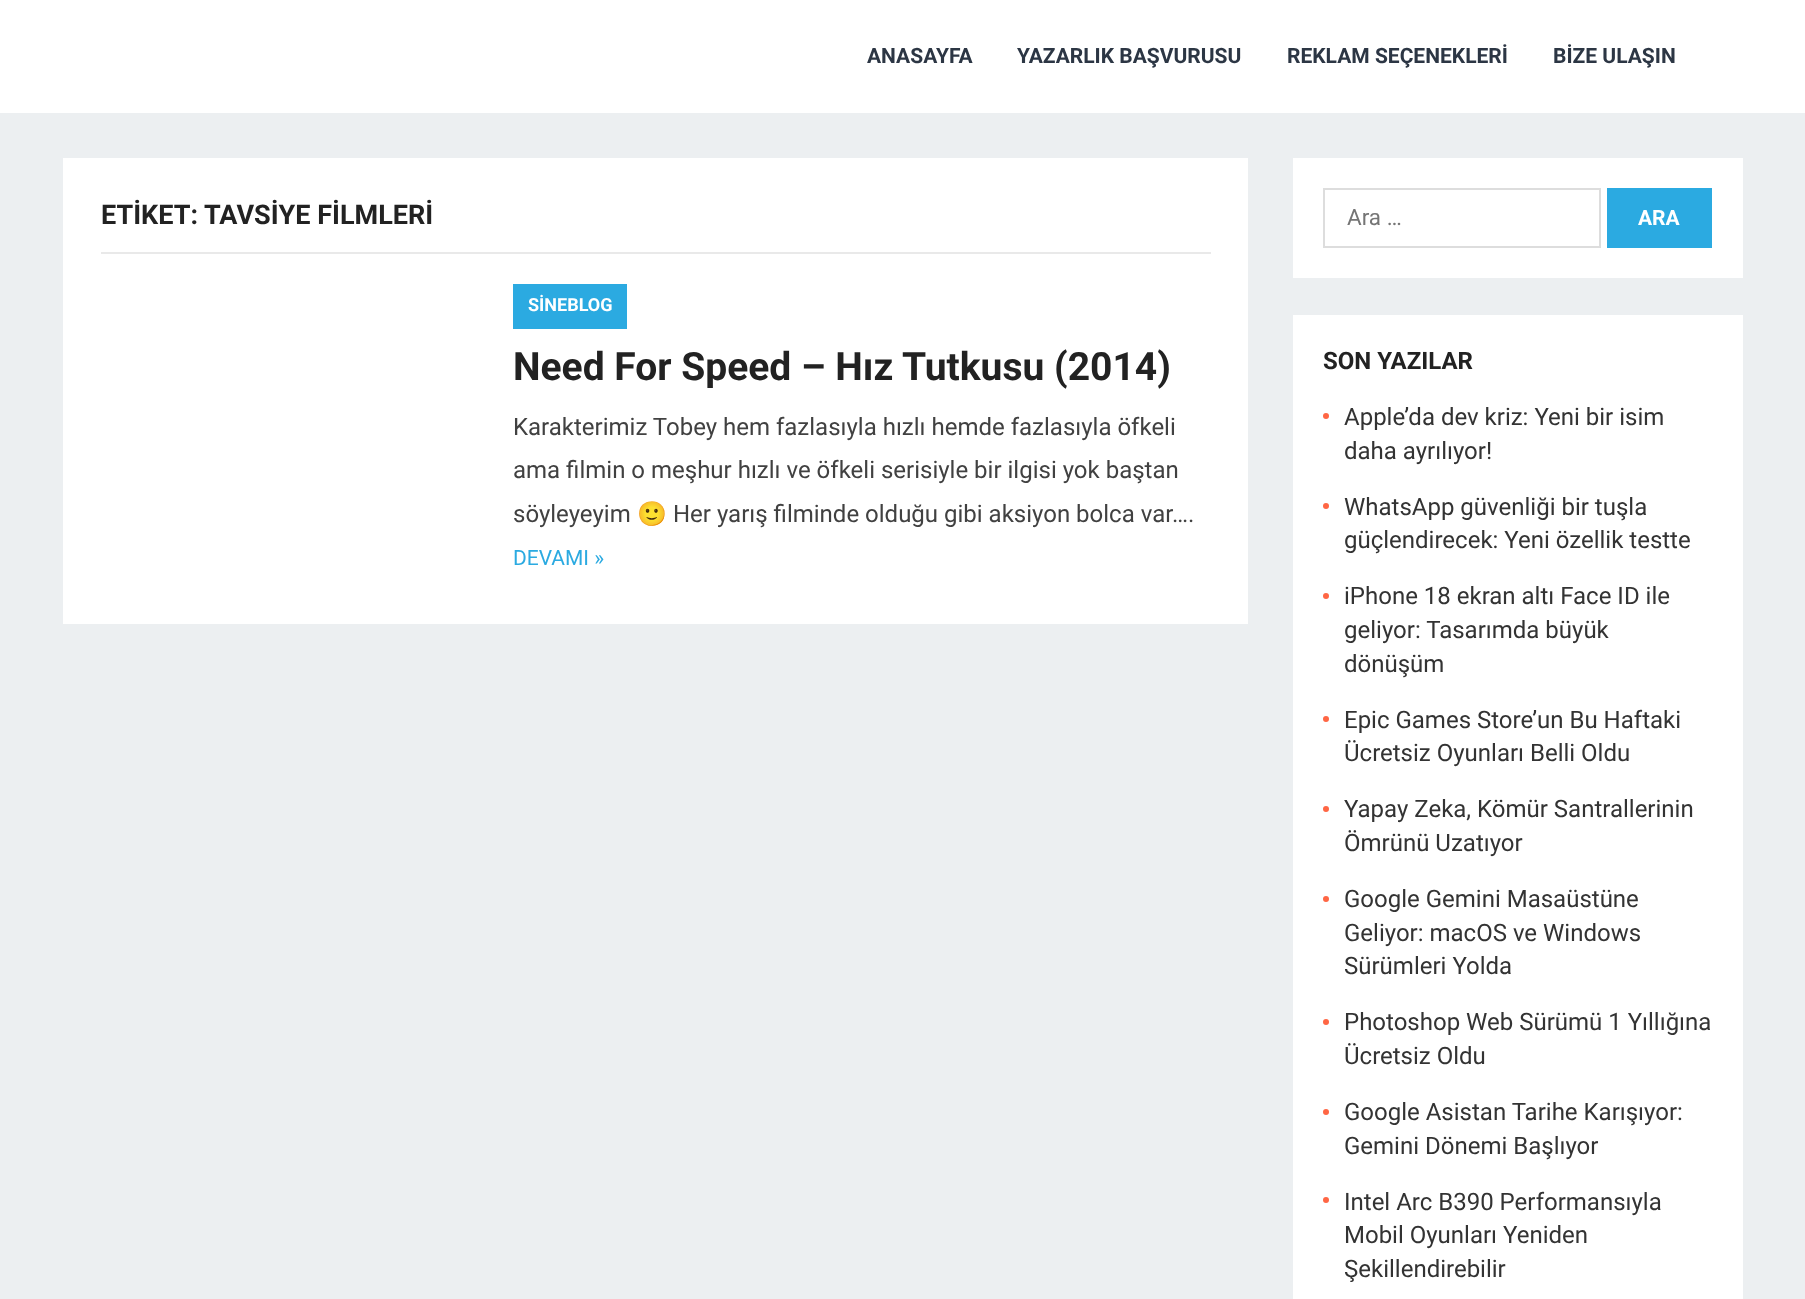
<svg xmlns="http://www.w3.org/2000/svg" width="1805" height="1299">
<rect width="100%" height="100%" fill="#eceff1"/>
<rect width="1805" height="113" fill="#fff"/>
<text x="867" y="63" style="font-family:Roboto;font-size:21px;font-weight:bold;fill:#2c3644">ANASAYFA</text>
<text x="1017" y="63" style="font-family:Roboto;font-size:21px;font-weight:bold;fill:#2c3644">YAZARLIK BAŞVURUSU</text>
<text x="1287" y="63" style="font-family:Roboto;font-size:21px;font-weight:bold;fill:#2c3644">REKLAM SEÇENEKLERİ</text>
<text x="1553" y="63" style="font-family:Roboto;font-size:21px;font-weight:bold;fill:#2c3644">BİZE ULAŞIN</text>
<rect x="63" y="158" width="1185" height="466" fill="#fff"/>
<rect x="101" y="252" width="1110" height="2" fill="#e9e9e9"/>
<text x="101" y="224" style="font-family:Roboto;font-size:27px;font-weight:bold;fill:#222">ETİKET: TAVSİYE FİLMLERİ</text>
<rect x="513" y="284" width="114" height="45" fill="#2baae1"/>
<text x="528" y="311" style="font-family:Roboto;font-size:18px;font-weight:bold;fill:#fff">SİNEBLOG</text>
<text x="513" y="380" style="font-family:Roboto;font-size:39px;font-weight:bold;fill:#222">Need For Speed – Hız Tutkusu (2014)</text>
<text x="513" y="435" style="font-family:Roboto;font-size:24px;fill:#414141">Karakterimiz Tobey hem fazlasıyla hızlı hemde fazlasıyla öfkeli</text>
<text x="513" y="478" style="font-family:Roboto;font-size:24px;fill:#414141">ama filmin o meşhur hızlı ve öfkeli serisiyle bir ilgisi yok baştan</text>
<text x="513" y="522" style="font-family:Roboto;font-size:24px;fill:#414141">söyleyeyim</text>
<text x="637" y="522" style="font-family:Noto Color Emoji;font-size:24px;fill:#414141">🙂</text>
<text x="673" y="522" style="font-family:Roboto;font-size:24px;fill:#414141">Her yarış filminde olduğu gibi aksiyon bolca var….</text>
<text x="513" y="565" style="font-family:Roboto;font-size:21px;fill:#2baae1">DEVAMI »</text>
<rect x="1293" y="158" width="450" height="120" fill="#fff"/>
<rect x="1324" y="189" width="276" height="58" fill="none" stroke="#ddd" stroke-width="2"/>
<text x="1347" y="225" style="font-family:Roboto;font-size:22.5px;fill:#757575">Ara …</text>
<rect x="1607" y="188" width="105" height="60" fill="#2baae1"/>
<text x="1638" y="225" style="font-family:Roboto;font-size:21px;font-weight:bold;fill:#fff">ARA</text>
<rect x="1293" y="315" width="450" height="984" fill="#fff"/>
<text x="1323" y="369" style="font-family:Roboto;font-size:24px;font-weight:bold;fill:#222">SON YAZILAR</text>
<circle cx="1326" cy="416" r="3" fill="#f64"/>
<text x="1344" y="425" style="font-family:Roboto;font-size:24px;fill:#333">Apple’da dev kriz: Yeni bir isim</text>
<text x="1344" y="459" style="font-family:Roboto;font-size:24px;fill:#333">daha ayrılıyor!</text>
<circle cx="1326" cy="506" r="3" fill="#f64"/>
<text x="1344" y="515" style="font-family:Roboto;font-size:24px;fill:#333">WhatsApp güvenliği bir tuşla</text>
<text x="1344" y="548" style="font-family:Roboto;font-size:24px;fill:#333">güçlendirecek: Yeni özellik testte</text>
<circle cx="1326" cy="596" r="3" fill="#f64"/>
<text x="1344" y="604" style="font-family:Roboto;font-size:24px;fill:#333">iPhone 18 ekran altı Face ID ile</text>
<text x="1344" y="638" style="font-family:Roboto;font-size:24px;fill:#333">geliyor: Tasarımda büyük</text>
<text x="1344" y="672" style="font-family:Roboto;font-size:24px;fill:#333">dönüşüm</text>
<circle cx="1326" cy="719" r="3" fill="#f64"/>
<text x="1344" y="728" style="font-family:Roboto;font-size:24px;fill:#333">Epic Games Store’un Bu Haftaki</text>
<text x="1344" y="761" style="font-family:Roboto;font-size:24px;fill:#333">Ücretsiz Oyunları Belli Oldu</text>
<circle cx="1326" cy="809" r="3" fill="#f64"/>
<text x="1344" y="817" style="font-family:Roboto;font-size:24px;fill:#333">Yapay Zeka, Kömür Santrallerinin</text>
<text x="1344" y="851" style="font-family:Roboto;font-size:24px;fill:#333">Ömrünü Uzatıyor</text>
<circle cx="1326" cy="899" r="3" fill="#f64"/>
<text x="1344" y="907" style="font-family:Roboto;font-size:24px;fill:#333">Google Gemini Masaüstüne</text>
<text x="1344" y="941" style="font-family:Roboto;font-size:24px;fill:#333">Geliyor: macOS ve Windows</text>
<text x="1344" y="974" style="font-family:Roboto;font-size:24px;fill:#333">Sürümleri Yolda</text>
<circle cx="1326" cy="1022" r="3" fill="#f64"/>
<text x="1344" y="1030" style="font-family:Roboto;font-size:24px;fill:#333">Photoshop Web Sürümü 1 Yıllığına</text>
<text x="1344" y="1064" style="font-family:Roboto;font-size:24px;fill:#333">Ücretsiz Oldu</text>
<circle cx="1326" cy="1112" r="3" fill="#f64"/>
<text x="1344" y="1120" style="font-family:Roboto;font-size:24px;fill:#333">Google Asistan Tarihe Karışıyor:</text>
<text x="1344" y="1154" style="font-family:Roboto;font-size:24px;fill:#333">Gemini Dönemi Başlıyor</text>
<circle cx="1326" cy="1200" r="3" fill="#f64"/>
<text x="1344" y="1210" style="font-family:Roboto;font-size:24px;fill:#333">Intel Arc B390 Performansıyla</text>
<text x="1344" y="1243" style="font-family:Roboto;font-size:24px;fill:#333">Mobil Oyunları Yeniden</text>
<text x="1344" y="1277" style="font-family:Roboto;font-size:24px;fill:#333">Şekillendirebilir</text>
</svg>
